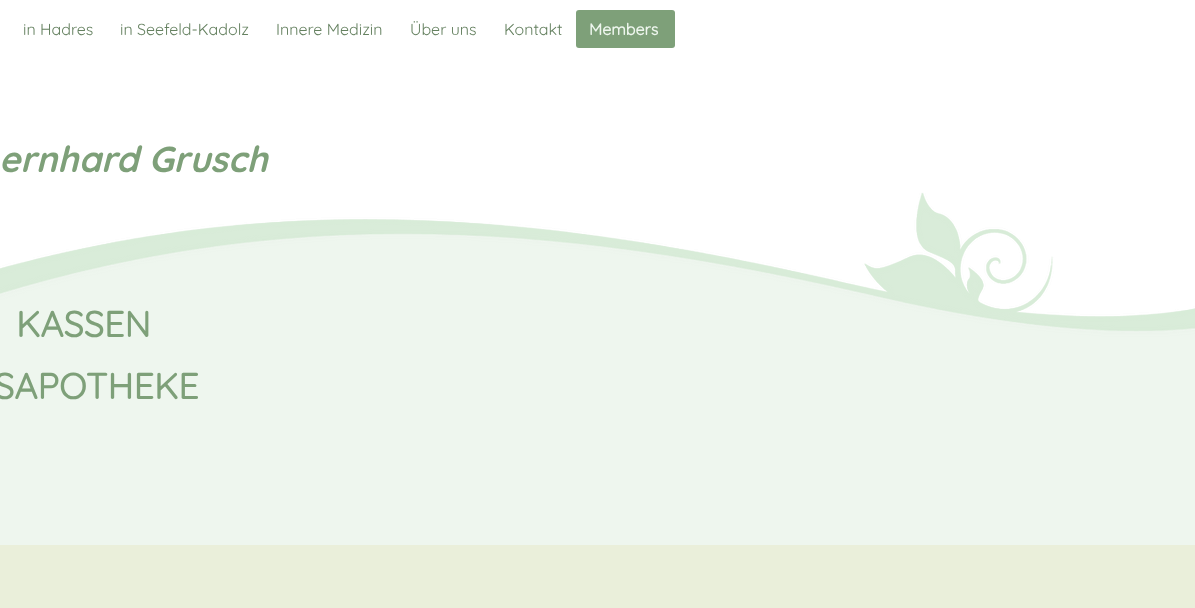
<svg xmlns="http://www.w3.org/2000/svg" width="1195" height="608">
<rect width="100%" height="100%" fill="#eaefda"/>
<rect width="1195" height="320" fill="#fff"/>
<text x="23" y="35" style="font-family:Quicksand;font-size:16px;fill:#658160">in Hadres</text>
<text x="120" y="35" style="font-family:Quicksand;font-size:16px;fill:#658160">in Seefeld-Kadolz</text>
<text x="276" y="35" style="font-family:Quicksand;font-size:16px;fill:#658160">Innere Medizin</text>
<text x="410" y="35" style="font-family:Quicksand;font-size:16px;fill:#658160">Über uns</text>
<text x="504" y="35" style="font-family:Quicksand;font-size:16px;fill:#658160">Kontakt</text>
<rect x="576" y="10" width="99" height="38" rx="3" fill="#7ea079"/>
<text x="589" y="35" style="font-family:Quicksand;font-size:16px;font-weight:bold;fill:#eef6ee">Members</text>
<text x="-1" y="172" style="font-family:Quicksand;font-size:36px;font-weight:bold;font-style:italic;fill:#7ea079">ernhard Grusch</text>
<image x="0" y="192" width="1195" height="353" href="media/1.png"/>
<image x="0" y="193" width="1195" height="124" href="media/2.png"/>
<text x="16" y="337" word-spacing="4" style="font-family:Quicksand;font-size:36px;font-weight:bold;fill:#7ea079">KASSEN</text>
<text x="-6" y="399" style="font-family:Quicksand;font-size:36px;font-weight:bold;fill:#7ea079">SAPOTHEKE</text>
</svg>
